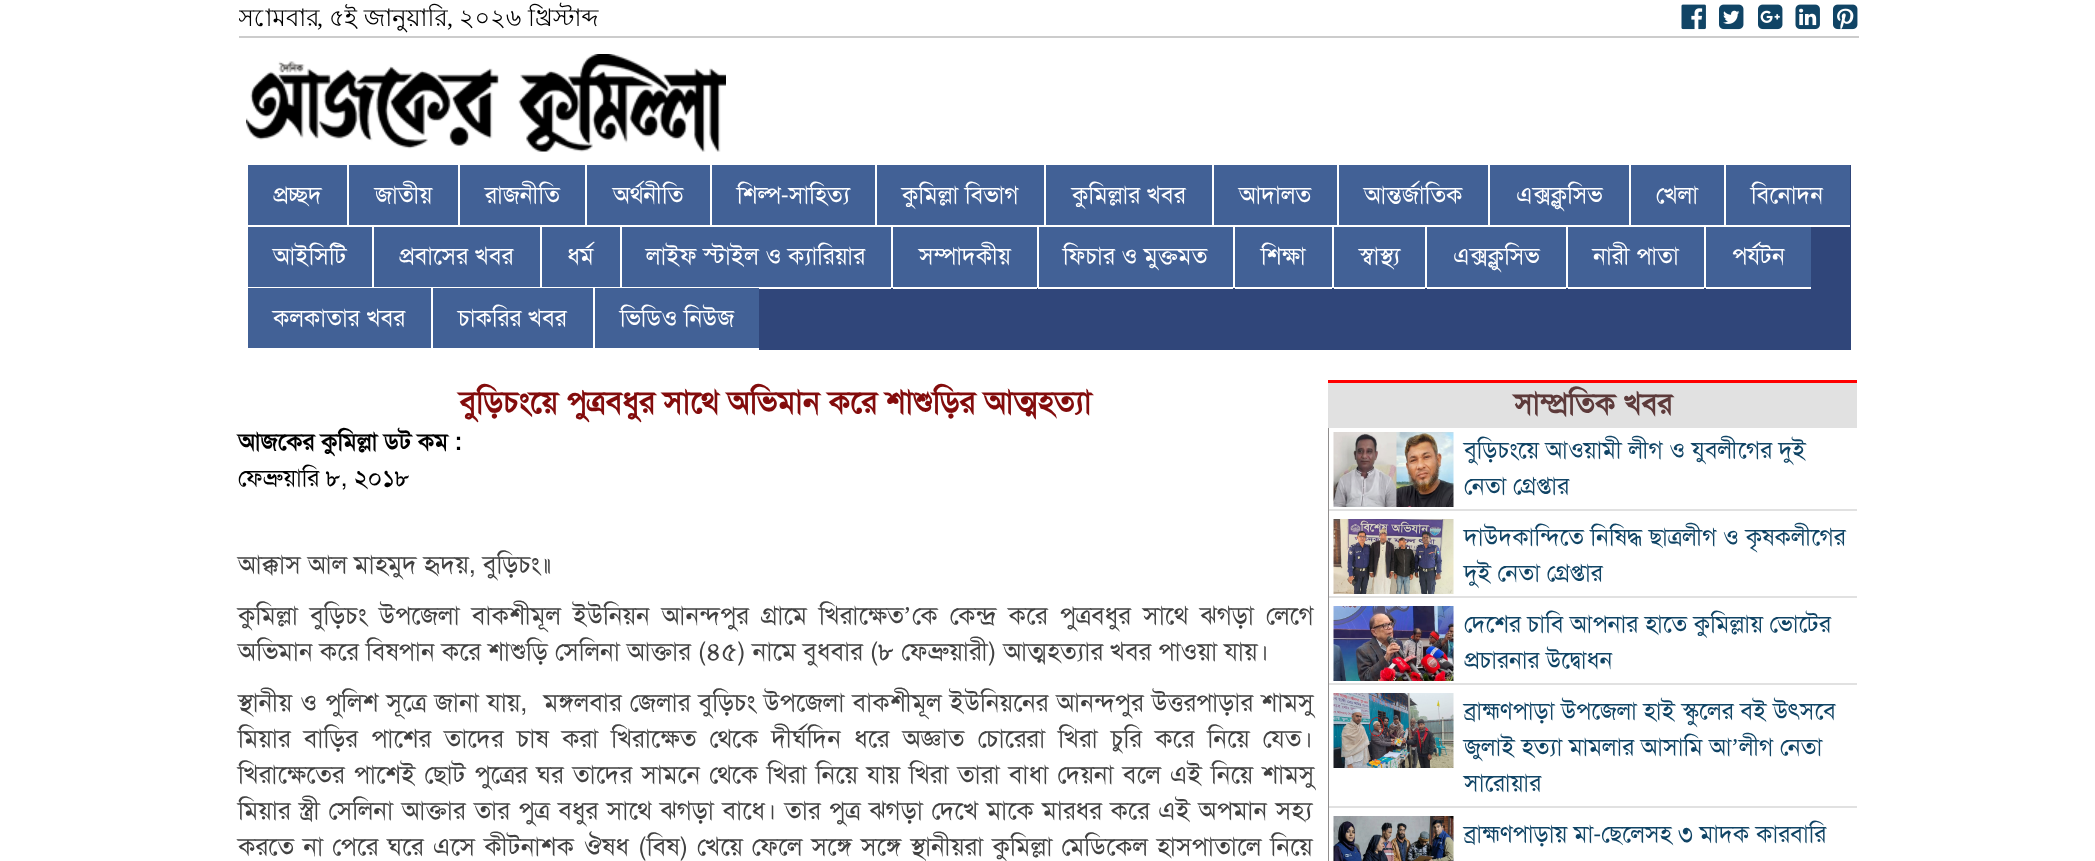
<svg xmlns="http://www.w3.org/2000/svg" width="2095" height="861">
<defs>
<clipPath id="clip1"><rect x="239" width="1620" height="36"/></clipPath>
</defs>
<rect width="100%" height="100%" fill="#fff"/>
<rect x="239" y="36" width="1620" height="2" fill="#ccc"/>
<g clip-path="url(#clip1)">
<text x="238" y="26" style="font-family:Lohit Bengali;font-size:24px;fill:#000">সোমবার</text>
</g>
<text x="317" y="26" style="font-family:Liberation Serif;font-size:24px;fill:#000">,</text>
<text x="329" y="26" style="font-family:Lohit Bengali;font-size:24px;fill:#000">৫ই জানুয়ারি</text>
<text x="447" y="26" style="font-family:Liberation Serif;font-size:24px;fill:#000">,</text>
<text x="459" y="26" style="font-family:Lohit Bengali;font-size:24px;fill:#000">২০২৬ খ্রিস্টাব্দ</text>
<image x="1681" y="4" width="25" height="26" href="media/1.png"/>
<image x="1719" y="4" width="25" height="26" href="media/2.png"/>
<image x="1758" y="4" width="25" height="26" href="media/3.png"/>
<image x="1795" y="4" width="25" height="26" href="media/4.png"/>
<image x="1833" y="4" width="25" height="26" href="media/5.png"/>
<image x="246" y="54" width="480" height="98" href="media/6.png"/>
<rect x="759" y="165" width="1092" height="185" fill="#30467a"/>
<rect x="248" y="165" width="99" height="60" fill="#426196"/>
<text x="273" y="203" style="font-family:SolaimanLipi;font-size:24px;fill:#fff">প্রচ্ছদ</text>
<rect x="349" y="165" width="109" height="60" fill="#426196"/>
<text x="375" y="203" style="font-family:SolaimanLipi;font-size:24px;fill:#fff">জাতীয়</text>
<rect x="460" y="165" width="125" height="60" fill="#426196"/>
<text x="485" y="203" style="font-family:SolaimanLipi;font-size:24px;fill:#fff">রাজনীতি</text>
<rect x="587" y="165" width="123" height="60" fill="#426196"/>
<text x="613" y="203" style="font-family:SolaimanLipi;font-size:24px;fill:#fff">অর্থনীতি</text>
<rect x="712" y="165" width="163" height="60" fill="#426196"/>
<rect x="759" y="225" width="116" height="2" fill="#fff"/>
<text x="737" y="203" style="font-family:SolaimanLipi;font-size:24px;fill:#fff">শিল্প-সাহিত্য</text>
<rect x="877" y="165" width="167" height="60" fill="#426196"/>
<rect x="875" y="165" width="2" height="62" fill="#fff"/>
<rect x="876" y="225" width="168" height="2" fill="#fff"/>
<text x="902" y="203" style="font-family:SolaimanLipi;font-size:24px;fill:#fff">কুমিল্লা বিভাগ</text>
<rect x="1046" y="165" width="166" height="60" fill="#426196"/>
<rect x="1044" y="165" width="2" height="62" fill="#fff"/>
<rect x="1046" y="225" width="166" height="2" fill="#fff"/>
<text x="1072" y="203" style="font-family:SolaimanLipi;font-size:24px;fill:#fff">কুমিল্লার খবর</text>
<rect x="1214" y="165" width="123" height="60" fill="#426196"/>
<rect x="1212" y="165" width="2" height="62" fill="#fff"/>
<rect x="1214" y="225" width="123" height="2" fill="#fff"/>
<text x="1239" y="203" style="font-family:SolaimanLipi;font-size:24px;fill:#fff">আদালত</text>
<rect x="1339" y="165" width="149" height="60" fill="#426196"/>
<rect x="1337" y="165" width="2" height="62" fill="#fff"/>
<rect x="1338" y="225" width="150" height="2" fill="#fff"/>
<text x="1364" y="203" style="font-family:SolaimanLipi;font-size:24px;fill:#fff">আন্তর্জাতিক</text>
<rect x="1490" y="165" width="139" height="60" fill="#426196"/>
<rect x="1488" y="165" width="2" height="62" fill="#fff"/>
<rect x="1490" y="225" width="139" height="2" fill="#fff"/>
<text x="1516" y="203" style="font-family:SolaimanLipi;font-size:24px;fill:#fff">এক্সক্লুসিভ</text>
<rect x="1631" y="165" width="93" height="60" fill="#426196"/>
<rect x="1629" y="165" width="2" height="62" fill="#fff"/>
<rect x="1631" y="225" width="93" height="2" fill="#fff"/>
<text x="1656" y="203" style="font-family:SolaimanLipi;font-size:24px;fill:#fff">খেলা</text>
<rect x="1726" y="165" width="124" height="60" fill="#426196"/>
<rect x="1724" y="165" width="2" height="62" fill="#fff"/>
<rect x="1725" y="225" width="125" height="2" fill="#fff"/>
<text x="1751" y="203" style="font-family:SolaimanLipi;font-size:24px;fill:#fff">বিনোদন</text>
<rect x="248" y="227" width="124" height="60" fill="#426196"/>
<text x="273" y="264" style="font-family:SolaimanLipi;font-size:24px;fill:#fff">আইসিটি</text>
<rect x="374" y="227" width="166" height="60" fill="#426196"/>
<text x="399" y="264" style="font-family:SolaimanLipi;font-size:24px;fill:#fff">প্রবাসের খবর</text>
<rect x="542" y="227" width="78" height="60" fill="#426196"/>
<text x="567" y="264" style="font-family:SolaimanLipi;font-size:24px;fill:#fff">ধর্ম</text>
<rect x="622" y="227" width="269" height="60" fill="#426196"/>
<rect x="759" y="287" width="132" height="2" fill="#fff"/>
<text x="646" y="264" style="font-family:SolaimanLipi;font-size:24px;fill:#fff">লাইফ স্টাইল ও ক্যারিয়ার</text>
<rect x="893" y="227" width="144" height="60" fill="#426196"/>
<rect x="891" y="227" width="2" height="61" fill="#fff"/>
<rect x="893" y="287" width="144" height="2" fill="#fff"/>
<text x="919" y="264" style="font-family:SolaimanLipi;font-size:24px;fill:#fff">সম্পাদকীয়</text>
<rect x="1039" y="227" width="194" height="60" fill="#426196"/>
<rect x="1037" y="227" width="2" height="61" fill="#fff"/>
<rect x="1038" y="287" width="195" height="2" fill="#fff"/>
<text x="1063" y="264" style="font-family:SolaimanLipi;font-size:24px;fill:#fff">ফিচার ও মুক্তমত</text>
<rect x="1235" y="227" width="97" height="60" fill="#426196"/>
<rect x="1233" y="227" width="2" height="61" fill="#fff"/>
<rect x="1235" y="287" width="97" height="2" fill="#fff"/>
<text x="1261" y="264" style="font-family:SolaimanLipi;font-size:24px;fill:#fff">শিক্ষা</text>
<rect x="1334" y="227" width="91" height="60" fill="#426196"/>
<rect x="1332" y="227" width="2" height="61" fill="#fff"/>
<rect x="1334" y="287" width="91" height="2" fill="#fff"/>
<text x="1359" y="264" style="font-family:SolaimanLipi;font-size:24px;fill:#fff">স্বাস্থ্য</text>
<rect x="1427" y="227" width="139" height="60" fill="#426196"/>
<rect x="1425" y="227" width="2" height="61" fill="#fff"/>
<rect x="1427" y="287" width="139" height="2" fill="#fff"/>
<text x="1453" y="264" style="font-family:SolaimanLipi;font-size:24px;fill:#fff">এক্সক্লুসিভ</text>
<rect x="1568" y="227" width="136" height="60" fill="#426196"/>
<rect x="1566" y="227" width="2" height="61" fill="#fff"/>
<rect x="1568" y="287" width="136" height="2" fill="#fff"/>
<text x="1593" y="264" style="font-family:SolaimanLipi;font-size:24px;fill:#fff">নারী পাতা</text>
<rect x="1706" y="227" width="105" height="60" fill="#426196"/>
<rect x="1704" y="227" width="2" height="61" fill="#fff"/>
<rect x="1706" y="287" width="105" height="2" fill="#fff"/>
<text x="1732" y="264" style="font-family:SolaimanLipi;font-size:24px;fill:#fff">পর্যটন</text>
<rect x="248" y="288" width="183" height="60" fill="#426196"/>
<text x="273" y="326" style="font-family:SolaimanLipi;font-size:24px;fill:#fff">কলকাতার খবর</text>
<rect x="433" y="288" width="160" height="60" fill="#426196"/>
<text x="458" y="326" style="font-family:SolaimanLipi;font-size:24px;fill:#fff">চাকরির খবর</text>
<rect x="595" y="288" width="164" height="60" fill="#426196"/>
<text x="620" y="326" style="font-family:SolaimanLipi;font-size:24px;fill:#fff">ভিডিও নিউজ</text>
<text x="459" y="413" style="font-family:SolaimanLipi;font-size:31.5px;font-weight:bold;fill:#830c0c">বুড়িচংয়ে পুত্রবধুর সাথে অভিমান করে শাশুড়ির আত্মহত্যা</text>
<text x="238" y="450" style="font-family:SolaimanLipi;font-size:24px;font-weight:bold;fill:#000">আজকের কুমিল্লা ডট কম :</text>
<text x="238" y="486" style="font-family:SolaimanLipi;font-size:24px;fill:#000">ফেব্রুয়ারি ৮, ২০১৮</text>
<text x="238" y="573" style="font-family:SolaimanLipi;font-size:25.5px;fill:#424242">আক্কাস আল মাহমুদ হৃদয়, বুড়িচং॥</text>
<text x="238" y="624" word-spacing="5" style="font-family:SolaimanLipi;font-size:25.5px;fill:#424242">কুমিল্লা বুড়িচং উপজেলা বাকশীমূল ইউনিয়ন আনন্দপুর গ্রামে খিরাক্ষেত</text>
<text x="903" y="624" style="font-family:Liberation Serif;font-size:25.5px;fill:#424242">’</text>
<text x="912" y="624" word-spacing="5" style="font-family:SolaimanLipi;font-size:25.5px;fill:#424242">কে কেন্দ্র করে পুত্রবধুর সাথে ঝগড়া লেগে</text>
<text x="238" y="660" style="font-family:SolaimanLipi;font-size:25.5px;fill:#424242">অভিমান করে বিষপান করে শাশুড়ি সেলিনা আক্তার (৪৫) নামে বুধবার (৮ ফেব্রুয়ারী) আত্মহত্যার খবর পাওয়া যায়।</text>
<text x="238" y="711" word-spacing="1.1" style="font-family:SolaimanLipi;font-size:25.5px;fill:#424242" xml:space="preserve">স্থানীয় ও পুলিশ সূত্রে জানা যায়,  মঙ্গলবার জেলার বুড়িচং উপজেলা বাকশীমূল ইউনিয়নের আনন্দপুর উত্তরপাড়ার শামসু</text>
<text x="238" y="747" word-spacing="6.1" style="font-family:SolaimanLipi;font-size:25.5px;fill:#424242">মিয়ার বাড়ির পাশের তাদের চাষ করা খিরাক্ষেত থেকে দীর্ঘদিন ধরে অজ্ঞাত চোরেরা খিরা চুরি করে নিয়ে যেত।</text>
<text x="238" y="783" word-spacing="2" style="font-family:SolaimanLipi;font-size:25.5px;fill:#424242">খিরাক্ষেতের পাশেই ছোট পুত্রের ঘর তাদের সামনে থেকে খিরা নিয়ে যায় খিরা তারা বাধা দেয়না বলে এই নিয়ে শামসু</text>
<text x="238" y="819" word-spacing="1.4" style="font-family:SolaimanLipi;font-size:25.5px;fill:#424242">মিয়ার স্ত্রী সেলিনা আক্তার তার পুত্র বধুর সাথে ঝগড়া বাধে। তার পুত্র ঝগড়া দেখে মাকে মারধর করে এই অপমান সহ্য</text>
<text x="238" y="855" word-spacing="2.1" style="font-family:SolaimanLipi;font-size:25.5px;fill:#424242">করতে না পেরে ঘরে এসে কীটনাশক ঔষধ (বিষ) খেয়ে ফেলে সঙ্গে সঙ্গে স্থানীয়রা কুমিল্লা মেডিকেল হাসপাতালে নিয়ে</text>
<rect x="1328" y="383" width="529" height="45" fill="#e1e1e1"/>
<rect x="1328" y="380" width="529" height="3" fill="#f00"/>
<text x="1514" y="414" style="font-family:SolaimanLipi;font-size:30px;font-weight:bold;fill:#5d3a3a">সাম্প্রতিক খবর</text>
<rect x="1328" y="428" width="1" height="433" fill="#908d8d"/>
<rect x="1329" y="509" width="528" height="2" fill="#e1e1e1"/>
<image x="1333" y="432" width="121" height="75" href="media/7.png"/>
<text x="1464" y="458" style="font-family:SolaimanLipi;font-size:24px;fill:#104465">বুড়িচংয়ে আওয়ামী লীগ ও যুবলীগের দুই</text>
<text x="1464" y="494" style="font-family:SolaimanLipi;font-size:24px;fill:#104465">নেতা গ্রেপ্তার</text>
<rect x="1329" y="596" width="528" height="2" fill="#e1e1e1"/>
<image x="1333" y="519" width="121" height="75" href="media/8.png"/>
<text x="1464" y="545" style="font-family:SolaimanLipi;font-size:24px;fill:#104465">দাউদকান্দিতে নিষিদ্ধ ছাত্রলীগ ও কৃষকলীগের</text>
<text x="1464" y="581" style="font-family:SolaimanLipi;font-size:24px;fill:#104465">দুই নেতা গ্রেপ্তার</text>
<rect x="1329" y="683" width="528" height="2" fill="#e1e1e1"/>
<image x="1333" y="606" width="121" height="75" href="media/9.png"/>
<text x="1464" y="632" style="font-family:SolaimanLipi;font-size:24px;fill:#104465">দেশের চাবি আপনার হাতে কুমিল্লায় ভোটের</text>
<text x="1464" y="668" style="font-family:SolaimanLipi;font-size:24px;fill:#104465">প্রচারনার উদ্বোধন</text>
<rect x="1329" y="806" width="528" height="2" fill="#e1e1e1"/>
<image x="1333" y="693" width="121" height="75" href="media/10.png"/>
<text x="1464" y="719" style="font-family:SolaimanLipi;font-size:24px;fill:#104465">ব্রাহ্মণপাড়া উপজেলা হাই স্কুলের বই উৎসবে</text>
<text x="1464" y="755" style="font-family:SolaimanLipi;font-size:24px;fill:#104465">জুলাই হত্যা মামলার আসামি আ</text>
<text x="1731" y="755" style="font-family:Liberation Serif;font-size:24px;fill:#104465">’</text>
<text x="1739" y="755" style="font-family:SolaimanLipi;font-size:24px;fill:#104465">লীগ নেতা</text>
<text x="1464" y="791" style="font-family:SolaimanLipi;font-size:24px;fill:#104465">সারোয়ার</text>
<image x="1333" y="816" width="121" height="45" href="media/11.png"/>
<text x="1464" y="842" style="font-family:SolaimanLipi;font-size:24px;fill:#104465">ব্রাহ্মণপাড়ায় মা-ছেলেসহ ৩ মাদক কারবারি</text>
</svg>
